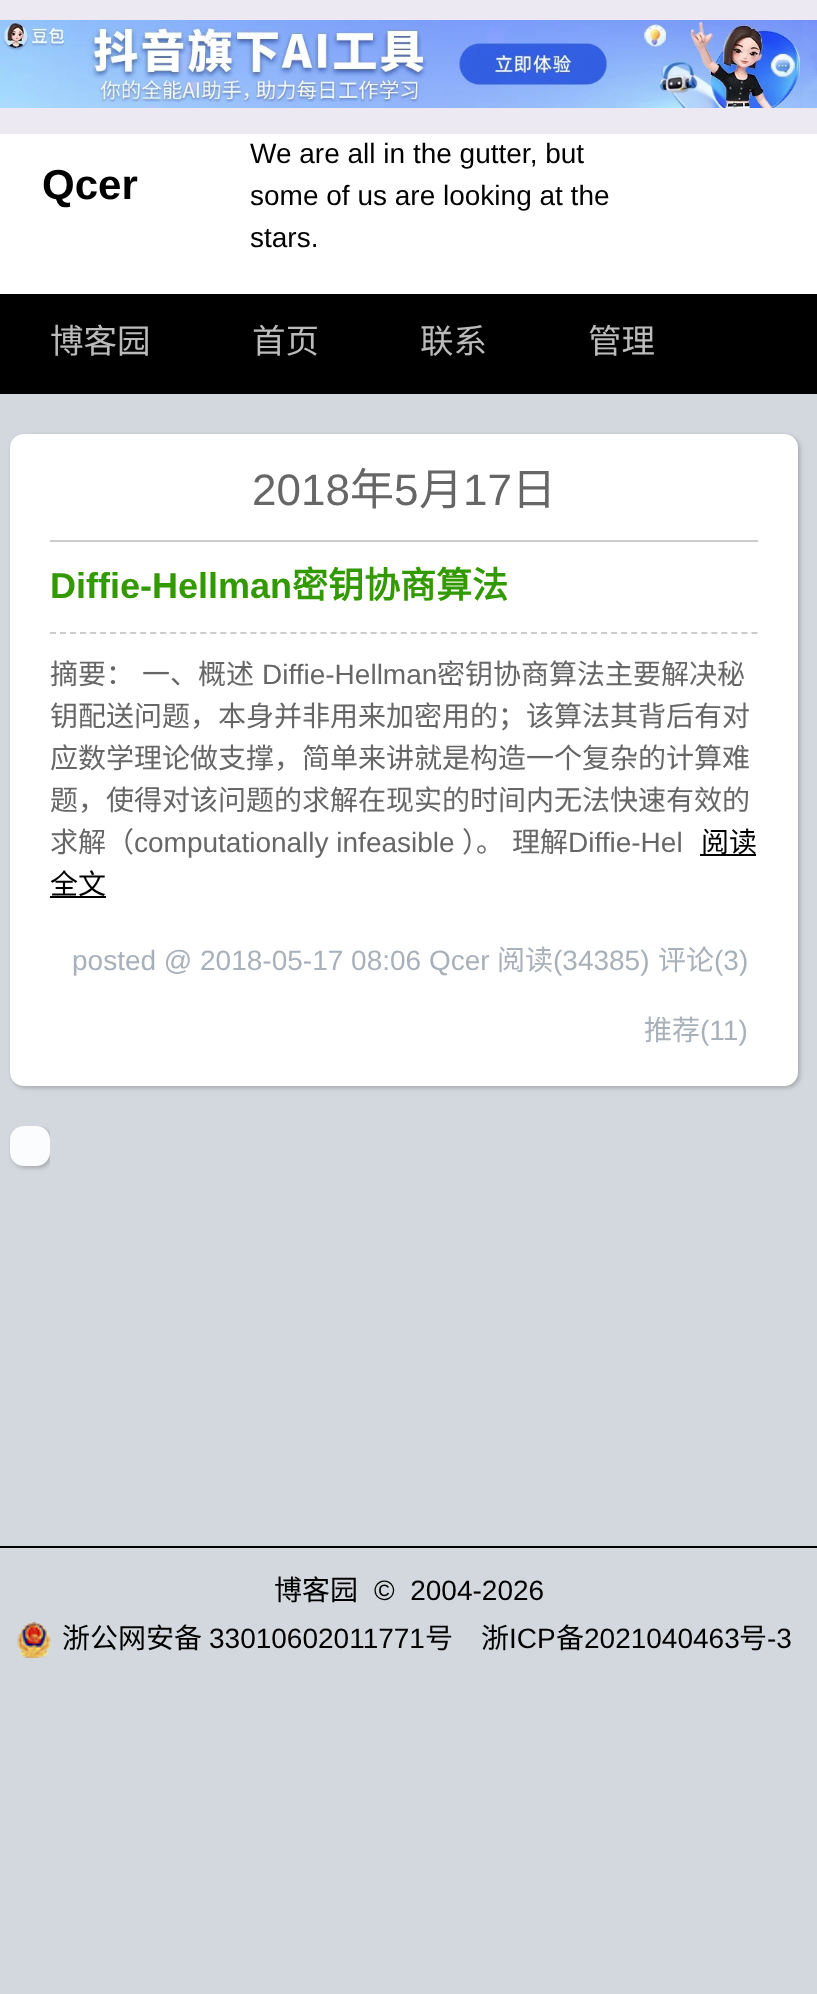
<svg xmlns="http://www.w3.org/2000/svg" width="817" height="1994">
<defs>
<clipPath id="clip1"><rect x="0" y="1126" width="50" height="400"/></clipPath>
</defs>
<rect width="100%" height="100%" fill="#d2d8de"/>
<rect width="817" height="134" fill="#ede9f2"/>
<image x="0" y="20" width="817" height="88" href="media/1.png"/>
<rect y="134" width="817" height="160" fill="#fff"/>
<text x="42" y="199" style="font-family:Liberation Sans;font-size:42px;font-weight:bold;fill:#000">Qcer</text>
<text x="250" y="163" style="font-family:Liberation Sans;font-size:28px;fill:#000">We are all in the gutter, but</text>
<text x="250" y="205" style="font-family:Liberation Sans;font-size:28px;fill:#000">some of us are looking at the</text>
<text x="250" y="247" style="font-family:Liberation Sans;font-size:28px;fill:#000">stars.</text>
<rect y="294" width="817" height="100" fill="#000"/>
<text x="50" y="353" style="font-family:Noto Sans CJK SC;font-size:33.5px;fill:#bbb">博客园</text>
<text x="252" y="353" style="font-family:Noto Sans CJK SC;font-size:33.5px;fill:#bbb">首页</text>
<text x="420" y="353" style="font-family:Noto Sans CJK SC;font-size:33.5px;fill:#bbb">联系</text>
<text x="588" y="353" style="font-family:Noto Sans CJK SC;font-size:33.5px;fill:#bbb">管理</text>
<rect x="12" y="436" width="788" height="652" rx="14" fill="#a7a8ad" filter="blur(2px)"/>
<rect x="10" y="434" width="788" height="652" rx="14" fill="#fff"/>
<rect x="50" y="540" width="708" height="2" fill="#ccc"/>
<text x="252" y="505" style="font-family:Liberation Sans;font-size:44px;fill:#666">2018</text>
<text x="350" y="505" style="font-family:Noto Sans CJK SC;font-size:44px;fill:#666">年</text>
<text x="394" y="505" style="font-family:Liberation Sans;font-size:44px;fill:#666">5</text>
<text x="419" y="505" style="font-family:Noto Sans CJK SC;font-size:44px;fill:#666">月</text>
<text x="463" y="505" style="font-family:Liberation Sans;font-size:44px;fill:#666">17</text>
<text x="512" y="505" style="font-family:Noto Sans CJK SC;font-size:44px;fill:#666">日</text>
<path d="M50 633h708" fill="none" stroke="#ccc" stroke-width="2" stroke-dasharray="6 4.02"/>
<text x="50" y="598" style="font-family:Liberation Sans;font-size:36px;font-weight:bold;fill:#390">Diffie-Hellman</text>
<text x="292" y="598" style="font-family:Noto Sans CJK SC;font-size:36px;font-weight:bold;fill:#390">密钥协商算法</text>
<text x="50" y="684" style="font-family:Noto Sans CJK SC;font-size:28px;fill:#666">摘要：</text>
<text x="142" y="684" style="font-family:Noto Sans CJK SC;font-size:28px;fill:#666">一、概述</text>
<text x="262" y="684" style="font-family:Liberation Sans;font-size:28px;fill:#666">Diffie-Hellman</text>
<text x="437" y="684" style="font-family:Noto Sans CJK SC;font-size:28px;fill:#666">密钥协商算法主要解决秘</text>
<text x="50" y="726" style="font-family:Noto Sans CJK SC;font-size:28px;fill:#666">钥配送问题，本身并非用来加密用的；该算法其背后有对</text>
<text x="50" y="768" style="font-family:Noto Sans CJK SC;font-size:28px;fill:#666">应数学理论做支撑，简单来讲就是构造一个复杂的计算难</text>
<text x="50" y="810" style="font-family:Noto Sans CJK SC;font-size:28px;fill:#666">题，使得对该问题的求解在现实的时间内无法快速有效的</text>
<text x="50" y="852" style="font-family:Noto Sans CJK SC;font-size:28px;fill:#666">求解（</text>
<text x="134" y="852" style="font-family:Liberation Sans;font-size:28px;fill:#666">computationally infeasible</text>
<text x="462" y="852" style="font-family:Noto Sans CJK SC;font-size:28px;fill:#666">）。</text>
<text x="512" y="852" style="font-family:Noto Sans CJK SC;font-size:28px;fill:#666">理解</text>
<text x="568" y="852" style="font-family:Liberation Sans;font-size:28px;fill:#666">Diffie-Hel</text>
<rect x="700" y="854" width="56" height="2" fill="#000"/>
<text x="701" y="852" style="font-family:Noto Sans CJK SC;font-size:28px;fill:#000">阅读</text>
<rect x="50" y="896" width="56" height="2" fill="#000"/>
<text x="50" y="894" style="font-family:Noto Sans CJK SC;font-size:28px;fill:#000">全文</text>
<text x="72" y="970" style="font-family:Liberation Sans;font-size:28px;fill:#a8b1ba">posted @ 2018-05-17 08:06 Qcer</text>
<text x="497" y="970" style="font-family:Noto Sans CJK SC;font-size:28px;fill:#a8b1ba">阅读</text>
<text x="553" y="970" style="font-family:Liberation Sans;font-size:28px;fill:#a8b1ba">(34385)</text>
<text x="658" y="970" style="font-family:Noto Sans CJK SC;font-size:28px;fill:#a8b1ba">评论</text>
<text x="714" y="970" style="font-family:Liberation Sans;font-size:28px;fill:#a8b1ba">(3)</text>
<text x="644" y="1040" style="font-family:Noto Sans CJK SC;font-size:28px;fill:#a8b1ba">推荐</text>
<text x="700" y="1040" style="font-family:Liberation Sans;font-size:28px;fill:#a8b1ba">(11)</text>
<g clip-path="url(#clip1)">
<rect x="12" y="1128" width="40" height="40" rx="14" fill="#a7a8ad" filter="blur(2px)"/>
</g>
<rect x="10" y="1126" width="40" height="40" rx="14" fill="#fafcfd"/>
<rect y="1546" width="817" height="2" fill="#000"/>
<text x="274" y="1600" style="font-family:Noto Sans CJK SC;font-size:28px;fill:#000">博客园</text>
<text x="374" y="1600" style="font-family:Liberation Sans;font-size:28px;fill:#000" xml:space="preserve">©  2004-2026</text>
<image x="17" y="1622" width="34" height="36" href="media/2.png"/>
<text x="62" y="1648" style="font-family:Noto Sans CJK SC;font-size:28px;fill:#000">浙公网安备</text>
<text x="209" y="1648" style="font-family:Liberation Sans;font-size:28px;fill:#000">33010602011771</text>
<text x="425" y="1648" style="font-family:Noto Sans CJK SC;font-size:28px;fill:#000">号</text>
<text x="481" y="1648" style="font-family:Noto Sans CJK SC;font-size:28px;fill:#000">浙</text>
<text x="509" y="1648" style="font-family:Liberation Sans;font-size:28px;fill:#000">ICP</text>
<text x="556" y="1648" style="font-family:Noto Sans CJK SC;font-size:28px;fill:#000">备</text>
<text x="584" y="1648" style="font-family:Liberation Sans;font-size:28px;fill:#000">2021040463</text>
<text x="739" y="1648" style="font-family:Noto Sans CJK SC;font-size:28px;fill:#000">号</text>
<text x="767" y="1648" style="font-family:Liberation Sans;font-size:28px;fill:#000">-3</text>
</svg>
